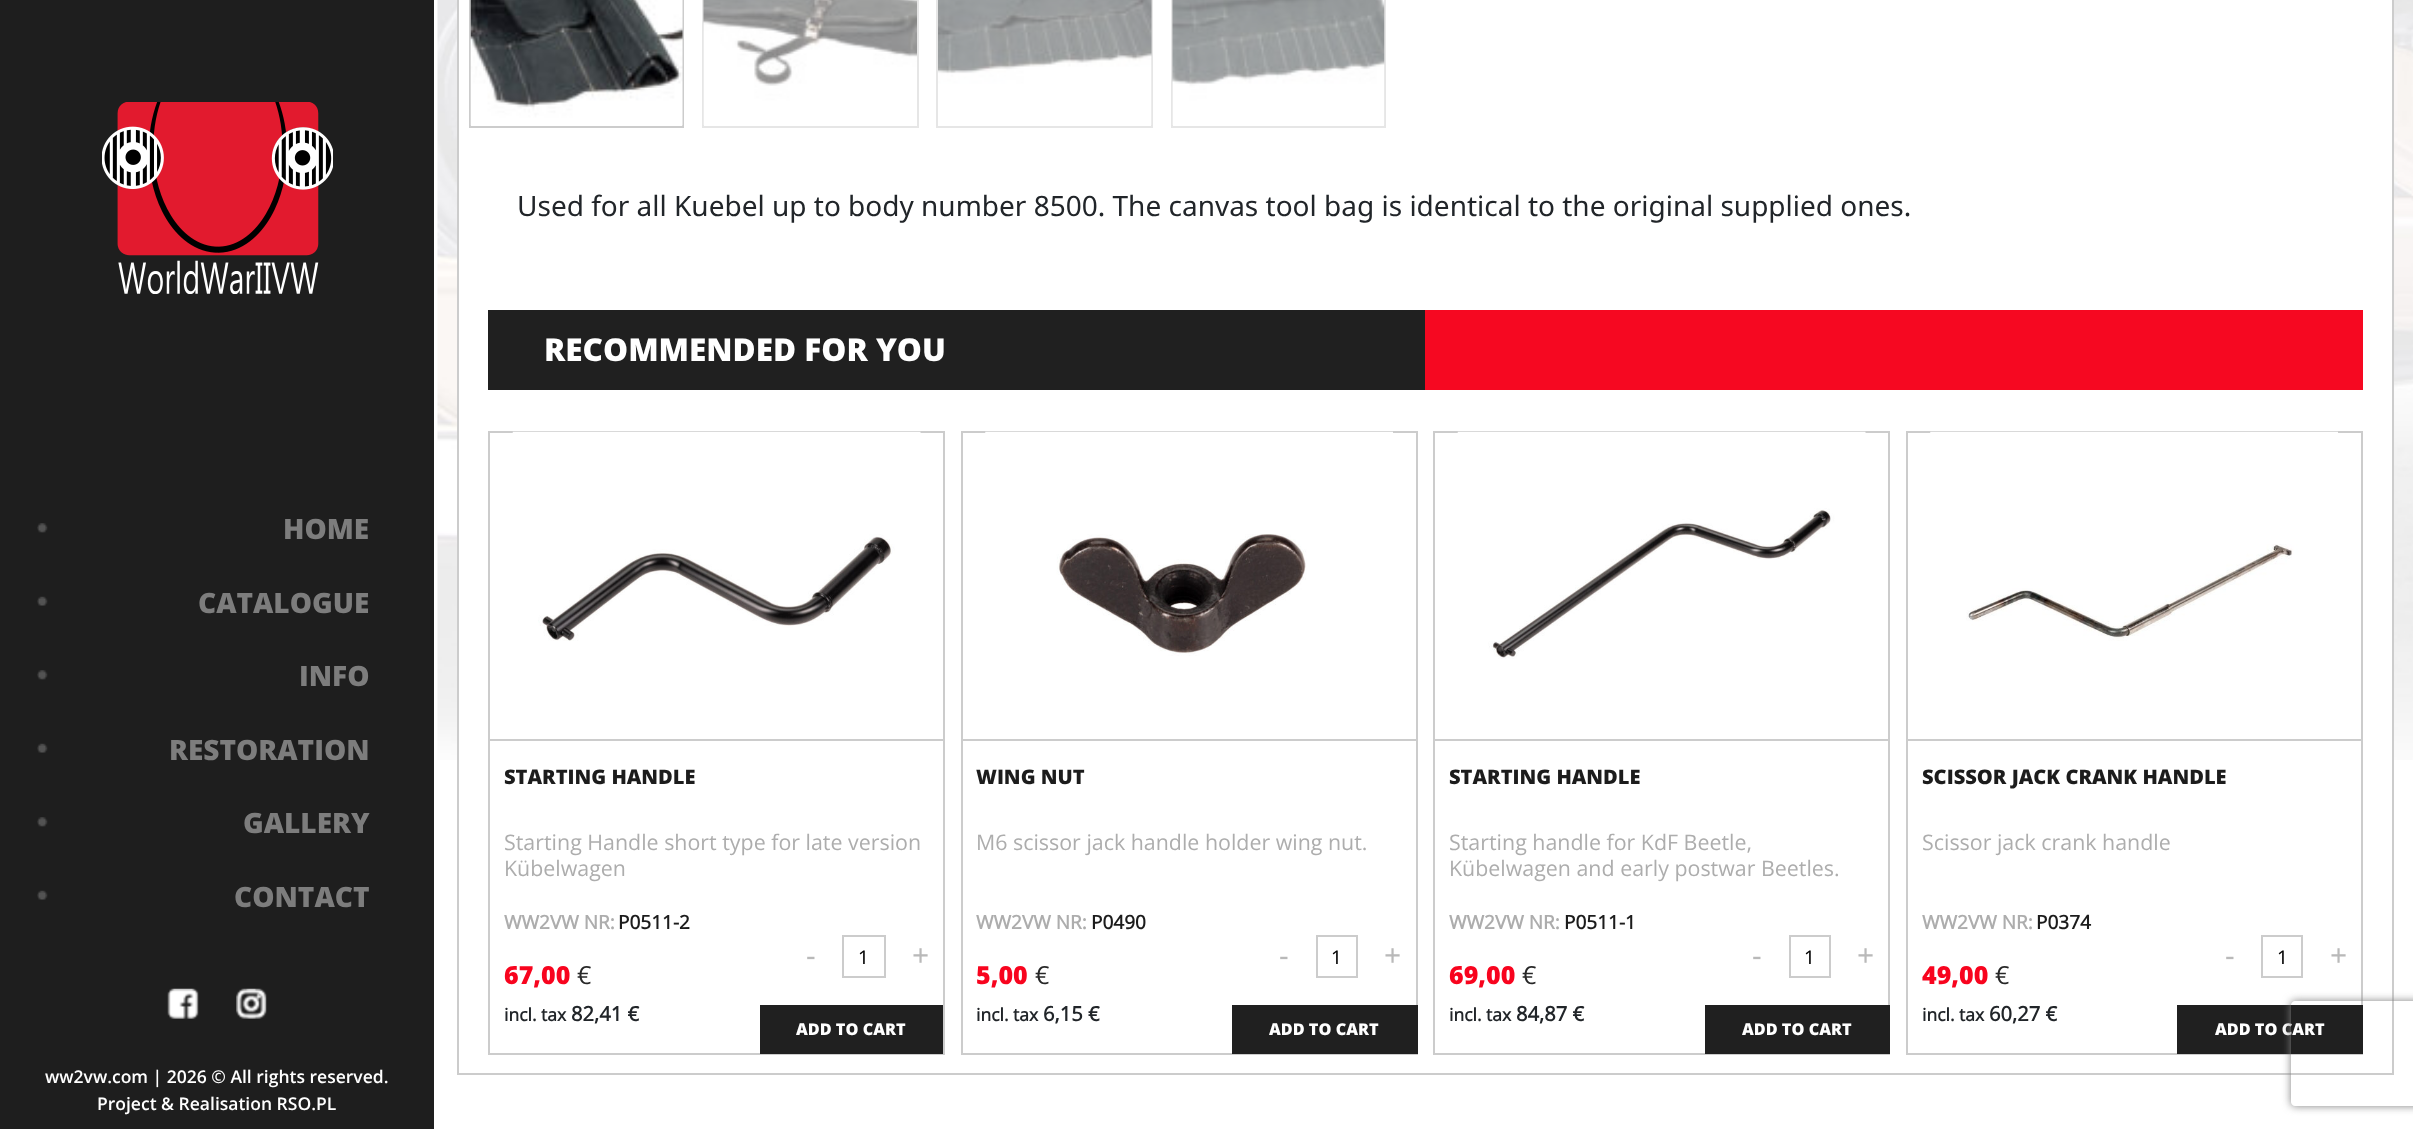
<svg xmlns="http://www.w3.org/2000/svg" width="2413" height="1129">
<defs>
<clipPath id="clip1"><path d="M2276 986h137v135h-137zm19 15h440c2 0 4 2 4 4v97c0 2-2 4-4 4h-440c-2 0-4-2-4-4v-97c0-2 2-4 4-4z" clip-rule="evenodd"/></clipPath>
</defs>
<rect width="100%" height="100%" fill="#fff"/>
<rect width="434" height="1129" fill="#1e1e1e"/>
<image x="102" y="102" width="231" height="192" href="media/1.png"/>
<image x="37" y="523" width="11" height="10" href="media/2.png"/>
<text x="283" y="539" style="font-family:Open Sans;font-size:28px;font-weight:800;fill:#7d7d7d">HOME</text>
<image x="37" y="596" width="11" height="10" href="media/3.png"/>
<text x="198" y="613" style="font-family:Open Sans;font-size:28px;font-weight:800;fill:#7d7d7d">CATALOGUE</text>
<image x="37" y="670" width="11" height="10" href="media/2.png"/>
<text x="299" y="686" style="font-family:Open Sans;font-size:28px;font-weight:800;fill:#7d7d7d">INFO</text>
<image x="37" y="743" width="11" height="10" href="media/3.png"/>
<text x="169" y="760" style="font-family:Open Sans;font-size:28px;font-weight:800;fill:#7d7d7d">RESTORATION</text>
<image x="37" y="817" width="11" height="10" href="media/2.png"/>
<text x="243" y="833" style="font-family:Open Sans;font-size:28px;font-weight:800;fill:#7d7d7d">GALLERY</text>
<image x="37" y="890" width="11" height="10" href="media/3.png"/>
<text x="234" y="907" style="font-family:Open Sans;font-size:28px;font-weight:800;fill:#7d7d7d">CONTACT</text>
<image x="167" y="988" width="32" height="31" href="media/4.png"/>
<image x="236" y="988" width="31" height="31" href="media/5.png"/>
<text x="45" y="1083" style="font-family:Open Sans;font-size:17.5px;font-weight:600;fill:#fff">ww2vw.com | 2026 © All rights reserved.</text>
<text x="97" y="1110" style="font-family:Open Sans;font-size:17.5px;font-weight:600;fill:#fff">Project &amp; Realisation RSO.PL</text>
<image x="437" y="0" width="1976" height="760" href="media/6.png"/>
<rect x="459" width="1933" height="760" fill="#fff"/>
<rect x="458" y="-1" width="1935" height="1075" fill="none" stroke="#ccc" stroke-width="2"/>
<rect x="470" y="-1" width="213" height="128" fill="none" stroke="#ccc" stroke-width="2"/>
<image x="470" y="0" width="213" height="126" href="media/7.png"/>
<rect x="703" y="-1" width="215" height="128" fill="none" stroke="#e6e6e6" stroke-width="2"/>
<image x="703" y="0" width="214" height="125" href="media/8.png"/>
<rect x="937" y="-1" width="215" height="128" fill="none" stroke="#e6e6e6" stroke-width="2"/>
<image x="938" y="0" width="214" height="125" href="media/9.png"/>
<rect x="1172" y="-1" width="213" height="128" fill="none" stroke="#e6e6e6" stroke-width="2"/>
<image x="1172" y="0" width="213" height="125" href="media/10.png"/>
<text x="517" y="216" style="font-family:Noto Sans;font-size:28px;fill:#212529">Used for all Kuebel up to body number 8500. The canvas tool bag is identical to the original supplied ones.</text>
<rect x="1425" y="310" width="938" height="80" fill="#f60821"/>
<rect x="488" y="310" width="937" height="80" fill="#202020"/>
<text x="544" y="361" style="font-family:Open Sans;font-size:31.5px;font-weight:800;fill:#fff">RECOMMENDED FOR YOU</text>
<rect x="489" y="432" width="455" height="622" fill="none" stroke="#ccc" stroke-width="2"/>
<rect x="490" y="739" width="453" height="2" fill="#ccc"/>
<image x="512" y="431" width="409" height="210" href="media/11.png"/>
<text x="504" y="784" style="font-family:Open Sans;font-size:20.1px;font-weight:800;fill:#1c1c1c">STARTING HANDLE</text>
<text x="504" y="850" style="font-family:Open Sans;font-size:21.4px;fill:#adadad">Starting Handle short type for late version</text>
<text x="504" y="876" style="font-family:Open Sans;font-size:21.4px;fill:#adadad">Kübelwagen</text>
<text x="504" y="929" style="font-family:Open Sans;font-size:19px;font-weight:bold;fill:#adadad">WW2VW NR:</text>
<text x="618" y="929" style="font-family:Open Sans;font-size:19px;font-weight:bold;fill:#1c1c1c">P0511-2</text>
<text x="504" y="984" style="font-family:Open Sans;font-size:25px;font-weight:800;fill:#f8041e">67,00</text>
<text x="577" y="984" style="font-family:Open Sans;font-size:25px;fill:#272727">€</text>
<text x="504" y="1021" style="font-family:Open Sans;font-size:17.5px;font-weight:bold;fill:#212529">incl. tax</text>
<text x="571" y="1021" style="font-family:Open Sans;font-size:20.1px;font-weight:bold;fill:#212529">82,41 €</text>
<text x="806" y="966" style="font-family:Noto Sans;font-size:30px;fill:#b9b9b9">-</text>
<rect x="843" y="936" width="42" height="41" fill="none" stroke="#ccc" stroke-width="2"/>
<text x="858" y="964" style="font-family:Noto Sans;font-size:19px;fill:#000">1</text>
<text x="912" y="966" style="font-family:Noto Sans;font-size:30px;fill:#b9b9b9">+</text>
<rect x="760" y="1005" width="183" height="49" fill="#202020"/>
<text x="796" y="1035" style="font-family:Open Sans;font-size:16.25px;font-weight:800;fill:#fff">ADD TO CART</text>
<rect x="962" y="432" width="455" height="622" fill="none" stroke="#ccc" stroke-width="2"/>
<rect x="963" y="739" width="453" height="2" fill="#ccc"/>
<image x="985" y="431" width="408" height="225" href="media/12.png"/>
<text x="976" y="784" style="font-family:Open Sans;font-size:20.1px;font-weight:800;fill:#1c1c1c">WING NUT</text>
<text x="976" y="850" style="font-family:Open Sans;font-size:21.4px;fill:#adadad">M6 scissor jack handle holder wing nut.</text>
<text x="976" y="929" style="font-family:Open Sans;font-size:19px;font-weight:bold;fill:#adadad">WW2VW NR:</text>
<text x="1091" y="929" style="font-family:Open Sans;font-size:19px;font-weight:bold;fill:#1c1c1c">P0490</text>
<text x="976" y="984" style="font-family:Open Sans;font-size:25px;font-weight:800;fill:#f8041e">5,00</text>
<text x="1035" y="984" style="font-family:Open Sans;font-size:25px;fill:#272727">€</text>
<text x="976" y="1021" style="font-family:Open Sans;font-size:17.5px;font-weight:bold;fill:#212529">incl. tax</text>
<text x="1043" y="1021" style="font-family:Open Sans;font-size:20.1px;font-weight:bold;fill:#212529">6,15 €</text>
<text x="1279" y="966" style="font-family:Noto Sans;font-size:30px;fill:#b9b9b9">-</text>
<rect x="1317" y="936" width="40" height="41" fill="none" stroke="#ccc" stroke-width="2"/>
<text x="1331" y="964" style="font-family:Noto Sans;font-size:19px;fill:#000">1</text>
<text x="1384" y="966" style="font-family:Noto Sans;font-size:30px;fill:#b9b9b9">+</text>
<rect x="1232" y="1005" width="186" height="49" fill="#202020"/>
<text x="1269" y="1035" style="font-family:Open Sans;font-size:16.25px;font-weight:800;fill:#fff">ADD TO CART</text>
<rect x="1434" y="432" width="455" height="622" fill="none" stroke="#ccc" stroke-width="2"/>
<rect x="1435" y="739" width="453" height="2" fill="#ccc"/>
<image x="1457" y="431" width="409" height="228" href="media/13.png"/>
<text x="1449" y="784" style="font-family:Open Sans;font-size:20.1px;font-weight:800;fill:#1c1c1c">STARTING HANDLE</text>
<text x="1449" y="850" style="font-family:Open Sans;font-size:21.4px;fill:#adadad">Starting handle for KdF Beetle,</text>
<text x="1449" y="876" style="font-family:Open Sans;font-size:21.4px;fill:#adadad">Kübelwagen and early postwar Beetles.</text>
<text x="1449" y="929" style="font-family:Open Sans;font-size:19px;font-weight:bold;fill:#adadad">WW2VW NR:</text>
<text x="1564" y="929" style="font-family:Open Sans;font-size:19px;font-weight:bold;fill:#1c1c1c">P0511-1</text>
<text x="1449" y="984" style="font-family:Open Sans;font-size:25px;font-weight:800;fill:#f8041e">69,00</text>
<text x="1522" y="984" style="font-family:Open Sans;font-size:25px;fill:#272727">€</text>
<text x="1449" y="1021" style="font-family:Open Sans;font-size:17.5px;font-weight:bold;fill:#212529">incl. tax</text>
<text x="1516" y="1021" style="font-family:Open Sans;font-size:20.1px;font-weight:bold;fill:#212529">84,87 €</text>
<text x="1752" y="966" style="font-family:Noto Sans;font-size:30px;fill:#b9b9b9">-</text>
<rect x="1790" y="936" width="40" height="41" fill="none" stroke="#ccc" stroke-width="2"/>
<text x="1804" y="964" style="font-family:Noto Sans;font-size:19px;fill:#000">1</text>
<text x="1857" y="966" style="font-family:Noto Sans;font-size:30px;fill:#b9b9b9">+</text>
<rect x="1705" y="1005" width="185" height="49" fill="#202020"/>
<text x="1742" y="1035" style="font-family:Open Sans;font-size:16.25px;font-weight:800;fill:#fff">ADD TO CART</text>
<rect x="1907" y="432" width="455" height="622" fill="none" stroke="#ccc" stroke-width="2"/>
<rect x="1908" y="739" width="453" height="2" fill="#ccc"/>
<image x="1930" y="431" width="408" height="210" href="media/14.png"/>
<text x="1922" y="784" style="font-family:Open Sans;font-size:20.1px;font-weight:800;fill:#1c1c1c">SCISSOR JACK CRANK HANDLE</text>
<text x="1922" y="850" style="font-family:Open Sans;font-size:21.4px;fill:#adadad">Scissor jack crank handle</text>
<text x="1922" y="929" style="font-family:Open Sans;font-size:19px;font-weight:bold;fill:#adadad">WW2VW NR:</text>
<text x="2036" y="929" style="font-family:Open Sans;font-size:19px;font-weight:bold;fill:#1c1c1c">P0374</text>
<text x="1922" y="984" style="font-family:Open Sans;font-size:25px;font-weight:800;fill:#f8041e">49,00</text>
<text x="1995" y="984" style="font-family:Open Sans;font-size:25px;fill:#272727">€</text>
<text x="1922" y="1021" style="font-family:Open Sans;font-size:17.5px;font-weight:bold;fill:#212529">incl. tax</text>
<text x="1989" y="1021" style="font-family:Open Sans;font-size:20.1px;font-weight:bold;fill:#212529">60,27 €</text>
<text x="2225" y="966" style="font-family:Noto Sans;font-size:30px;fill:#b9b9b9">-</text>
<rect x="2262" y="936" width="40" height="41" fill="none" stroke="#ccc" stroke-width="2"/>
<text x="2277" y="964" style="font-family:Noto Sans;font-size:19px;fill:#000">1</text>
<text x="2330" y="966" style="font-family:Noto Sans;font-size:30px;fill:#b9b9b9">+</text>
<rect x="2177" y="1005" width="186" height="49" fill="#202020"/>
<text x="2215" y="1035" style="font-family:Open Sans;font-size:16.25px;font-weight:800;fill:#fff">ADD TO CART</text>
<g clip-path="url(#clip1)">
<rect x="2291" y="1001" width="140" height="105" rx="4" fill="#808080" filter="blur(4.5px)"/>
</g>
</svg>
